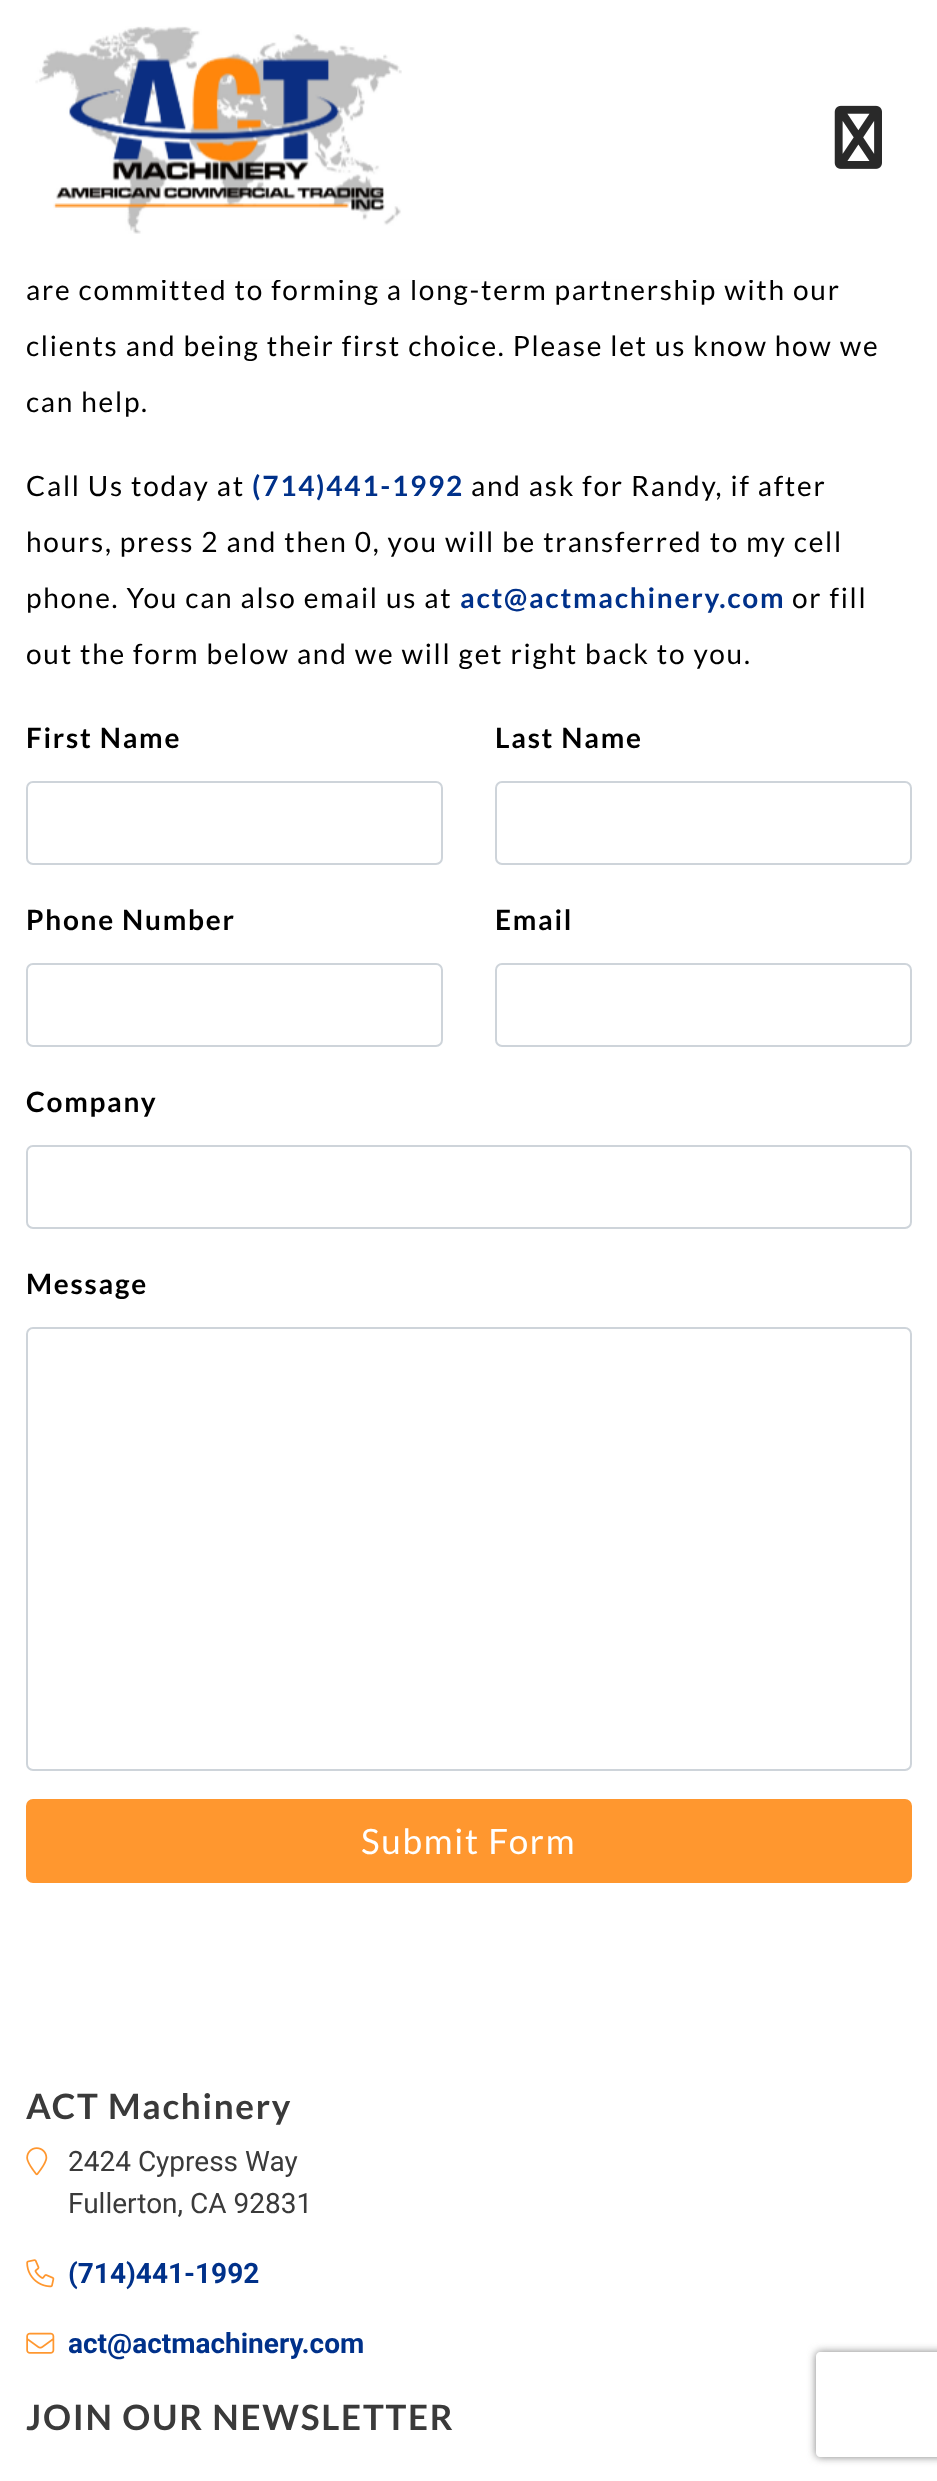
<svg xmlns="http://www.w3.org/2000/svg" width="937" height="2481">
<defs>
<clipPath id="clip1"><path d="M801 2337h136v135h-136zm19 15h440c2 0 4 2 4 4v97c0 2-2 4-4 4h-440c-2 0-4-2-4-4v-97c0-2 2-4 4-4z" clip-rule="evenodd"/></clipPath>
</defs>
<rect width="100%" height="100%" fill="#fff"/>
<text x="26" y="300" style="font-family:Lato;font-size:28px;letter-spacing:1.75px;fill:#000">are committed to forming a long-term partnership with our</text>
<rect x="163" y="279" width="611" height="1" fill="#fefefe"/>
<image x="35" y="26" width="367" height="208" href="media/1.png"/>
<image x="834" y="105" width="48" height="64" href="media/2.png"/>
<text x="26" y="356" style="font-family:Lato;font-size:28px;letter-spacing:1.75px;fill:#000">clients and being their first choice. Please let us know how we</text>
<text x="26" y="412" style="font-family:Lato;font-size:28px;letter-spacing:1.75px;fill:#000">can help.</text>
<text x="26" y="496" style="font-family:Lato;font-size:28px;letter-spacing:1.75px;fill:#000">Call Us today at</text>
<text x="252" y="496" style="font-family:Lato;font-size:28px;font-weight:bold;letter-spacing:1.75px;fill:#00318a">(714)441-1992</text>
<text x="471" y="496" style="font-family:Lato;font-size:28px;letter-spacing:1.75px;fill:#000">and ask for Randy, if after</text>
<text x="26" y="552" style="font-family:Lato;font-size:28px;letter-spacing:1.75px;fill:#000">hours, press 2 and then 0, you will be transferred to my cell</text>
<text x="26" y="608" style="font-family:Lato;font-size:28px;letter-spacing:1.75px;fill:#000">phone. You can also email us at</text>
<text x="460" y="608" style="font-family:Lato;font-size:28px;font-weight:bold;letter-spacing:1.75px;fill:#00318a">act@actmachinery.com</text>
<text x="792" y="608" style="font-family:Lato;font-size:28px;letter-spacing:1.75px;fill:#000">or fill</text>
<text x="26" y="664" style="font-family:Lato;font-size:28px;letter-spacing:1.75px;fill:#000">out the form below and we will get right back to you.</text>
<text x="26" y="748" style="font-family:Lato;font-size:28px;font-weight:bold;letter-spacing:1.75px;fill:#000">First Name</text>
<rect x="27" y="782" width="415" height="82" rx="6" fill="none" stroke="#ced4da" stroke-width="2"/>
<text x="495" y="748" style="font-family:Lato;font-size:28px;font-weight:bold;letter-spacing:1.75px;fill:#000">Last Name</text>
<rect x="496" y="782" width="415" height="82" rx="6" fill="none" stroke="#ced4da" stroke-width="2"/>
<text x="26" y="930" style="font-family:Lato;font-size:28px;font-weight:bold;letter-spacing:1.75px;fill:#000">Phone Number</text>
<rect x="27" y="964" width="415" height="82" rx="6" fill="none" stroke="#ced4da" stroke-width="2"/>
<text x="495" y="930" style="font-family:Lato;font-size:28px;font-weight:bold;letter-spacing:1.75px;fill:#000">Email</text>
<rect x="496" y="964" width="415" height="82" rx="6" fill="none" stroke="#ced4da" stroke-width="2"/>
<text x="26" y="1112" style="font-family:Lato;font-size:28px;font-weight:bold;letter-spacing:1.75px;fill:#000">Company</text>
<rect x="27" y="1146" width="884" height="82" rx="6" fill="none" stroke="#ced4da" stroke-width="2"/>
<text x="26" y="1294" style="font-family:Lato;font-size:28px;font-weight:bold;letter-spacing:1.75px;fill:#000">Message</text>
<rect x="27" y="1328" width="884" height="442" rx="6" fill="none" stroke="#ced4da" stroke-width="2"/>
<rect x="27" y="1800" width="884" height="82" rx="6" fill="#ff972f" stroke="#ff972f" stroke-width="2"/>
<text x="361" y="1854" style="font-family:Lato;font-size:35px;letter-spacing:1.75px;fill:#fff">Submit Form</text>
<text x="26" y="2119" style="font-family:Lato;font-size:35px;font-weight:bold;letter-spacing:1.75px;fill:#3a3a3a">ACT Machinery</text>
<image x="26" y="2147" width="22" height="29" href="media/3.png"/>
<text x="68" y="2171" style="font-family:Roboto;font-size:28px;fill:#3a3a3a">2424 Cypress Way</text>
<text x="68" y="2213" style="font-family:Roboto;font-size:28px;fill:#3a3a3a">Fullerton, CA 92831</text>
<image x="26" y="2259" width="29" height="29" href="media/4.png"/>
<text x="68" y="2283" style="font-family:Roboto;font-size:28px;font-weight:bold;fill:#00318a">(714)441-1992</text>
<image x="26" y="2332" width="29" height="22" href="media/5.png"/>
<text x="68" y="2353" style="font-family:Roboto;font-size:28px;font-weight:bold;fill:#00318a">act@actmachinery.com</text>
<text x="26" y="2430" style="font-family:Lato;font-size:35px;font-weight:bold;letter-spacing:1.75px;fill:#3a3a3a">JOIN OUR NEWSLETTER</text>
<g clip-path="url(#clip1)">
<rect x="816" y="2352" width="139" height="105" rx="4" fill="#808080" filter="blur(4.5px)"/>
</g>
</svg>
